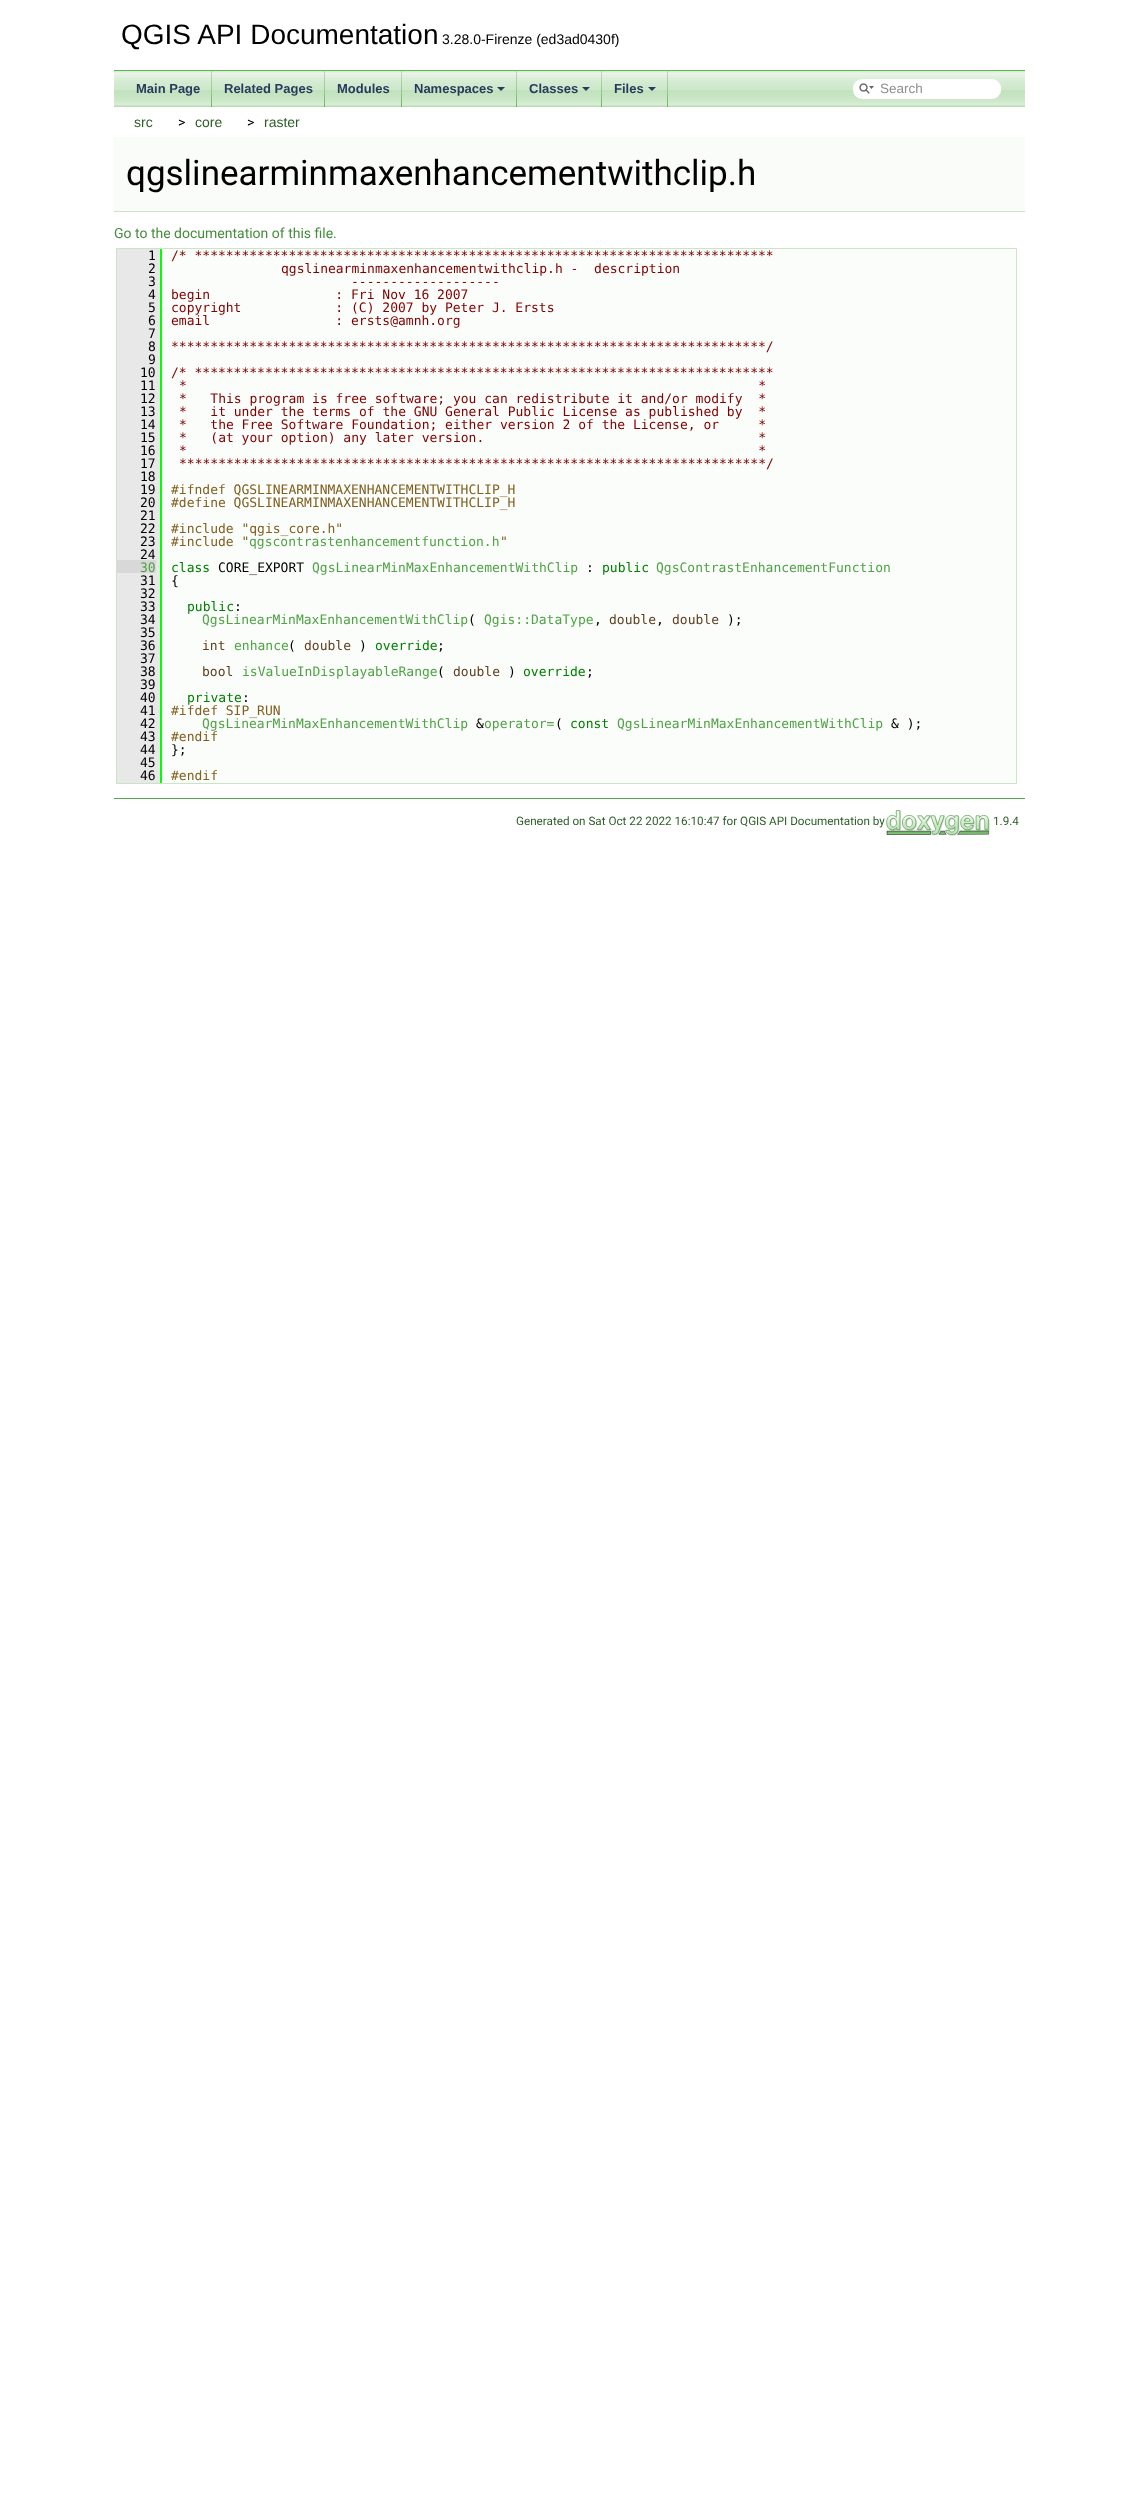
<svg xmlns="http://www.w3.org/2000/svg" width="1139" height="2510">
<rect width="100%" height="100%" fill="#fff"/>
<rect x="114" y="70" width="911" height="1" fill="#5fb453"/>
<text x="121" y="44" style="font-family:Liberation Sans;font-size:28px;fill:#000">QGIS API Documentation</text>
<text x="442" y="44" style="font-family:Liberation Sans;font-size:14px;fill:#000">3.28.0-Firenze (ed3ad0430f)</text>
<image x="114" y="71" width="911" height="36" href="media/1.png"/>
<image x="211" y="71" width="1" height="36" href="media/2.png"/>
<text x="136" y="93" style="font-family:Liberation Sans;font-size:13px;font-weight:bold;fill:#283a5d">Main Page</text>
<image x="324" y="71" width="1" height="36" href="media/2.png"/>
<text x="224" y="93" style="font-family:Liberation Sans;font-size:13px;font-weight:bold;fill:#283a5d">Related Pages</text>
<image x="401" y="71" width="1" height="36" href="media/2.png"/>
<text x="337" y="93" style="font-family:Liberation Sans;font-size:13px;font-weight:bold;fill:#283a5d">Modules</text>
<image x="516" y="71" width="1" height="36" href="media/2.png"/>
<text x="414" y="93" style="font-family:Liberation Sans;font-size:13px;font-weight:bold;fill:#283a5d">Namespaces</text>
<path d="M497 87h8l-4 4z" fill="#283a5d"/>
<image x="601" y="71" width="1" height="36" href="media/2.png"/>
<text x="529" y="93" style="font-family:Liberation Sans;font-size:13px;font-weight:bold;fill:#283a5d">Classes</text>
<path d="M582 87h8l-4 4z" fill="#283a5d"/>
<image x="667" y="71" width="1" height="36" href="media/2.png"/>
<text x="614" y="93" style="font-family:Liberation Sans;font-size:13px;font-weight:bold;fill:#283a5d">Files</text>
<path d="M648 87h8l-4 4z" fill="#283a5d"/>
<rect x="853" y="79" width="148" height="20" rx="9" fill="#fff"/>
<image x="859" y="83" width="15" height="11" href="media/3.png"/>
<text x="880" y="93" style="font-family:Liberation Sans;font-size:13.5px;fill:#909090">Search</text>
<text x="134" y="127" style="font-family:Liberation Sans;font-size:14px;fill:#2e5d28">src</text>
<text x="178" y="127" style="font-family:Roboto;font-size:14px;fill:#000">&gt;</text>
<text x="195" y="127" style="font-family:Liberation Sans;font-size:14px;fill:#2e5d28">core</text>
<text x="247" y="127" style="font-family:Roboto;font-size:14px;fill:#000">&gt;</text>
<text x="264" y="127" style="font-family:Liberation Sans;font-size:14px;fill:#2e5d28">raster</text>
<rect x="114" y="137" width="911" height="74" fill="#f9fcf9"/>
<rect x="114" y="211" width="911" height="1" fill="#c8e5c4"/>
<text x="126" y="185" style="font-family:Roboto;font-size:35px;fill:#000">qgslinearminmaxenhancementwithclip.h</text>
<text x="114" y="238" style="font-family:Roboto;font-size:14px;fill:#468c3d">Go to the documentation of this file.</text>
<rect x="162" y="249" width="854" height="534" fill="#fbfdfb"/>
<rect x="116.5" y="248.5" width="900" height="535" fill="none" stroke="#c8e5c4"/>
<rect x="117" y="249" width="43" height="311" fill="#e8e8e8"/>
<text x="148" y="260" style="font-family:DejaVu Sans Mono;font-size:13px;fill:#000">1</text>
<rect x="160" y="249" width="2" height="534" fill="#0f0"/>
<text x="171" y="260" style="font-family:DejaVu Sans Mono;font-size:13px;fill:#800000">/* **************************************************************************</text>
<text x="148" y="273" style="font-family:DejaVu Sans Mono;font-size:13px;fill:#000">2</text>
<text x="281" y="273" style="font-family:DejaVu Sans Mono;font-size:13px;fill:#800000" xml:space="preserve">qgslinearminmaxenhancementwithclip.h -  description</text>
<text x="148" y="286" style="font-family:DejaVu Sans Mono;font-size:13px;fill:#000">3</text>
<text x="351" y="286" style="font-family:DejaVu Sans Mono;font-size:13px;fill:#800000">-------------------</text>
<text x="148" y="299" style="font-family:DejaVu Sans Mono;font-size:13px;fill:#000">4</text>
<text x="171" y="299" style="font-family:DejaVu Sans Mono;font-size:13px;fill:#800000" xml:space="preserve">begin                : Fri Nov 16 2007</text>
<text x="148" y="312" style="font-family:DejaVu Sans Mono;font-size:13px;fill:#000">5</text>
<text x="171" y="312" style="font-family:DejaVu Sans Mono;font-size:13px;fill:#800000" xml:space="preserve">copyright            : (C) 2007 by Peter J. Ersts</text>
<text x="148" y="325" style="font-family:DejaVu Sans Mono;font-size:13px;fill:#000">6</text>
<text x="171" y="325" style="font-family:DejaVu Sans Mono;font-size:13px;fill:#800000" xml:space="preserve">email                : ersts@amnh.org</text>
<text x="148" y="338" style="font-family:DejaVu Sans Mono;font-size:13px;fill:#000">7</text>
<text x="148" y="351" style="font-family:DejaVu Sans Mono;font-size:13px;fill:#000">8</text>
<text x="171" y="351" style="font-family:DejaVu Sans Mono;font-size:13px;fill:#800000">****************************************************************************/</text>
<text x="148" y="364" style="font-family:DejaVu Sans Mono;font-size:13px;fill:#000">9</text>
<text x="140" y="377" style="font-family:DejaVu Sans Mono;font-size:13px;fill:#000">10</text>
<text x="171" y="377" style="font-family:DejaVu Sans Mono;font-size:13px;fill:#800000">/* **************************************************************************</text>
<text x="140" y="390" style="font-family:DejaVu Sans Mono;font-size:13px;fill:#000">11</text>
<text x="179" y="390" style="font-family:DejaVu Sans Mono;font-size:13px;fill:#800000" xml:space="preserve">*                                                                         *</text>
<text x="140" y="403" style="font-family:DejaVu Sans Mono;font-size:13px;fill:#000">12</text>
<text x="179" y="403" style="font-family:DejaVu Sans Mono;font-size:13px;fill:#800000" xml:space="preserve">*   This program is free software; you can redistribute it and/or modify  *</text>
<text x="140" y="416" style="font-family:DejaVu Sans Mono;font-size:13px;fill:#000">13</text>
<text x="179" y="416" style="font-family:DejaVu Sans Mono;font-size:13px;fill:#800000" xml:space="preserve">*   it under the terms of the GNU General Public License as published by  *</text>
<text x="140" y="429" style="font-family:DejaVu Sans Mono;font-size:13px;fill:#000">14</text>
<text x="179" y="429" style="font-family:DejaVu Sans Mono;font-size:13px;fill:#800000" xml:space="preserve">*   the Free Software Foundation; either version 2 of the License, or     *</text>
<text x="140" y="442" style="font-family:DejaVu Sans Mono;font-size:13px;fill:#000">15</text>
<text x="179" y="442" style="font-family:DejaVu Sans Mono;font-size:13px;fill:#800000" xml:space="preserve">*   (at your option) any later version.                                   *</text>
<text x="140" y="455" style="font-family:DejaVu Sans Mono;font-size:13px;fill:#000">16</text>
<text x="179" y="455" style="font-family:DejaVu Sans Mono;font-size:13px;fill:#800000" xml:space="preserve">*                                                                         *</text>
<text x="140" y="468" style="font-family:DejaVu Sans Mono;font-size:13px;fill:#000">17</text>
<text x="179" y="468" style="font-family:DejaVu Sans Mono;font-size:13px;fill:#800000">***************************************************************************/</text>
<text x="140" y="481" style="font-family:DejaVu Sans Mono;font-size:13px;fill:#000">18</text>
<text x="140" y="494" style="font-family:DejaVu Sans Mono;font-size:13px;fill:#000">19</text>
<text x="171" y="494" style="font-family:DejaVu Sans Mono;font-size:13px;fill:#806020">#ifndef QGSLINEARMINMAXENHANCEMENTWITHCLIP_H</text>
<text x="140" y="507" style="font-family:DejaVu Sans Mono;font-size:13px;fill:#000">20</text>
<text x="171" y="507" style="font-family:DejaVu Sans Mono;font-size:13px;fill:#806020">#define QGSLINEARMINMAXENHANCEMENTWITHCLIP_H</text>
<text x="140" y="520" style="font-family:DejaVu Sans Mono;font-size:13px;fill:#000">21</text>
<text x="140" y="533" style="font-family:DejaVu Sans Mono;font-size:13px;fill:#000">22</text>
<text x="171" y="533" style="font-family:DejaVu Sans Mono;font-size:13px;fill:#806020">#include "qgis_core.h"</text>
<text x="140" y="546" style="font-family:DejaVu Sans Mono;font-size:13px;fill:#000">23</text>
<text x="171" y="546" style="font-family:DejaVu Sans Mono;font-size:13px;fill:#806020">#include "</text>
<text x="249" y="546" style="font-family:DejaVu Sans Mono;font-size:13px;fill:#51a246">qgscontrastenhancementfunction.h</text>
<text x="500" y="546" style="font-family:DejaVu Sans Mono;font-size:13px;fill:#806020">"</text>
<text x="140" y="559" style="font-family:DejaVu Sans Mono;font-size:13px;fill:#000">24</text>
<rect x="117" y="560" width="39" height="13" fill="#d8d8d8"/>
<text x="140" y="572" style="font-family:DejaVu Sans Mono;font-size:13px;fill:#51a246">30</text>
<rect x="156" y="560" width="4" height="13" fill="#e8e8e8"/>
<text x="171" y="572" style="font-family:DejaVu Sans Mono;font-size:13px;fill:#008000">class</text>
<text x="218" y="572" style="font-family:DejaVu Sans Mono;font-size:13px;fill:#000">CORE_EXPORT</text>
<text x="312" y="572" style="font-family:DejaVu Sans Mono;font-size:13px;fill:#51a246">QgsLinearMinMaxEnhancementWithClip</text>
<text x="586" y="572" style="font-family:DejaVu Sans Mono;font-size:13px;fill:#000">:</text>
<text x="602" y="572" style="font-family:DejaVu Sans Mono;font-size:13px;fill:#008000">public</text>
<text x="656" y="572" style="font-family:DejaVu Sans Mono;font-size:13px;fill:#51a246">QgsContrastEnhancementFunction</text>
<rect x="117" y="573" width="43" height="210" fill="#e8e8e8"/>
<text x="140" y="585" style="font-family:DejaVu Sans Mono;font-size:13px;fill:#000">31</text>
<text x="171" y="585" style="font-family:DejaVu Sans Mono;font-size:13px;fill:#000">{</text>
<text x="140" y="598" style="font-family:DejaVu Sans Mono;font-size:13px;fill:#000">32</text>
<text x="140" y="611" style="font-family:DejaVu Sans Mono;font-size:13px;fill:#000">33</text>
<text x="187" y="611" style="font-family:DejaVu Sans Mono;font-size:13px;fill:#008000">public</text>
<text x="234" y="611" style="font-family:DejaVu Sans Mono;font-size:13px;fill:#000">:</text>
<text x="140" y="624" style="font-family:DejaVu Sans Mono;font-size:13px;fill:#000">34</text>
<text x="202" y="624" style="font-family:DejaVu Sans Mono;font-size:13px;fill:#51a246">QgsLinearMinMaxEnhancementWithClip</text>
<text x="468" y="624" style="font-family:DejaVu Sans Mono;font-size:13px;fill:#000">(</text>
<text x="484" y="624" style="font-family:DejaVu Sans Mono;font-size:13px;fill:#51a246">Qgis::DataType</text>
<text x="594" y="624" style="font-family:DejaVu Sans Mono;font-size:13px;fill:#000">,</text>
<text x="609" y="624" style="font-family:DejaVu Sans Mono;font-size:13px;fill:#604020">double</text>
<text x="656" y="624" style="font-family:DejaVu Sans Mono;font-size:13px;fill:#000">,</text>
<text x="672" y="624" style="font-family:DejaVu Sans Mono;font-size:13px;fill:#604020">double</text>
<text x="727" y="624" style="font-family:DejaVu Sans Mono;font-size:13px;fill:#000">);</text>
<text x="140" y="637" style="font-family:DejaVu Sans Mono;font-size:13px;fill:#000">35</text>
<text x="140" y="650" style="font-family:DejaVu Sans Mono;font-size:13px;fill:#000">36</text>
<text x="202" y="650" style="font-family:DejaVu Sans Mono;font-size:13px;fill:#604020">int</text>
<text x="234" y="650" style="font-family:DejaVu Sans Mono;font-size:13px;fill:#51a246">enhance</text>
<text x="288" y="650" style="font-family:DejaVu Sans Mono;font-size:13px;fill:#000">(</text>
<text x="304" y="650" style="font-family:DejaVu Sans Mono;font-size:13px;fill:#604020">double</text>
<text x="359" y="650" style="font-family:DejaVu Sans Mono;font-size:13px;fill:#000">)</text>
<text x="375" y="650" style="font-family:DejaVu Sans Mono;font-size:13px;fill:#008000">override</text>
<text x="437" y="650" style="font-family:DejaVu Sans Mono;font-size:13px;fill:#000">;</text>
<text x="140" y="663" style="font-family:DejaVu Sans Mono;font-size:13px;fill:#000">37</text>
<text x="140" y="676" style="font-family:DejaVu Sans Mono;font-size:13px;fill:#000">38</text>
<text x="202" y="676" style="font-family:DejaVu Sans Mono;font-size:13px;fill:#604020">bool</text>
<text x="242" y="676" style="font-family:DejaVu Sans Mono;font-size:13px;fill:#51a246">isValueInDisplayableRange</text>
<text x="437" y="676" style="font-family:DejaVu Sans Mono;font-size:13px;fill:#000">(</text>
<text x="453" y="676" style="font-family:DejaVu Sans Mono;font-size:13px;fill:#604020">double</text>
<text x="508" y="676" style="font-family:DejaVu Sans Mono;font-size:13px;fill:#000">)</text>
<text x="523" y="676" style="font-family:DejaVu Sans Mono;font-size:13px;fill:#008000">override</text>
<text x="586" y="676" style="font-family:DejaVu Sans Mono;font-size:13px;fill:#000">;</text>
<text x="140" y="689" style="font-family:DejaVu Sans Mono;font-size:13px;fill:#000">39</text>
<text x="140" y="702" style="font-family:DejaVu Sans Mono;font-size:13px;fill:#000">40</text>
<text x="187" y="702" style="font-family:DejaVu Sans Mono;font-size:13px;fill:#008000">private</text>
<text x="242" y="702" style="font-family:DejaVu Sans Mono;font-size:13px;fill:#000">:</text>
<text x="140" y="715" style="font-family:DejaVu Sans Mono;font-size:13px;fill:#000">41</text>
<text x="171" y="715" style="font-family:DejaVu Sans Mono;font-size:13px;fill:#806020">#ifdef SIP_RUN</text>
<text x="140" y="728" style="font-family:DejaVu Sans Mono;font-size:13px;fill:#000">42</text>
<text x="202" y="728" style="font-family:DejaVu Sans Mono;font-size:13px;fill:#51a246">QgsLinearMinMaxEnhancementWithClip</text>
<text x="476" y="728" style="font-family:DejaVu Sans Mono;font-size:13px;fill:#000">&amp;</text>
<text x="484" y="728" style="font-family:DejaVu Sans Mono;font-size:13px;fill:#51a246">operator=</text>
<text x="555" y="728" style="font-family:DejaVu Sans Mono;font-size:13px;fill:#000">(</text>
<text x="570" y="728" style="font-family:DejaVu Sans Mono;font-size:13px;fill:#008000">const</text>
<text x="617" y="728" style="font-family:DejaVu Sans Mono;font-size:13px;fill:#51a246">QgsLinearMinMaxEnhancementWithClip</text>
<text x="891" y="728" style="font-family:DejaVu Sans Mono;font-size:13px;fill:#000">&amp; );</text>
<text x="140" y="741" style="font-family:DejaVu Sans Mono;font-size:13px;fill:#000">43</text>
<text x="171" y="741" style="font-family:DejaVu Sans Mono;font-size:13px;fill:#806020">#endif</text>
<text x="140" y="754" style="font-family:DejaVu Sans Mono;font-size:13px;fill:#000">44</text>
<text x="171" y="754" style="font-family:DejaVu Sans Mono;font-size:13px;fill:#000">};</text>
<text x="140" y="767" style="font-family:DejaVu Sans Mono;font-size:13px;fill:#000">45</text>
<text x="140" y="780" style="font-family:DejaVu Sans Mono;font-size:13px;fill:#000">46</text>
<text x="171" y="780" style="font-family:DejaVu Sans Mono;font-size:13px;fill:#806020">#endif</text>
<rect x="114" y="798" width="911" height="1" fill="#55aa4a"/>
<text x="516" y="825" style="font-family:Roboto;font-size:11.7px;fill:#2e5d28">Generated on Sat Oct 22 2022 16:10:47 for QGIS API Documentation by</text>
<image x="886" y="810" width="104" height="26" href="media/4.png"/>
<text x="993" y="825" style="font-family:Roboto;font-size:11.7px;fill:#2e5d28">1.9.4</text>
</svg>
